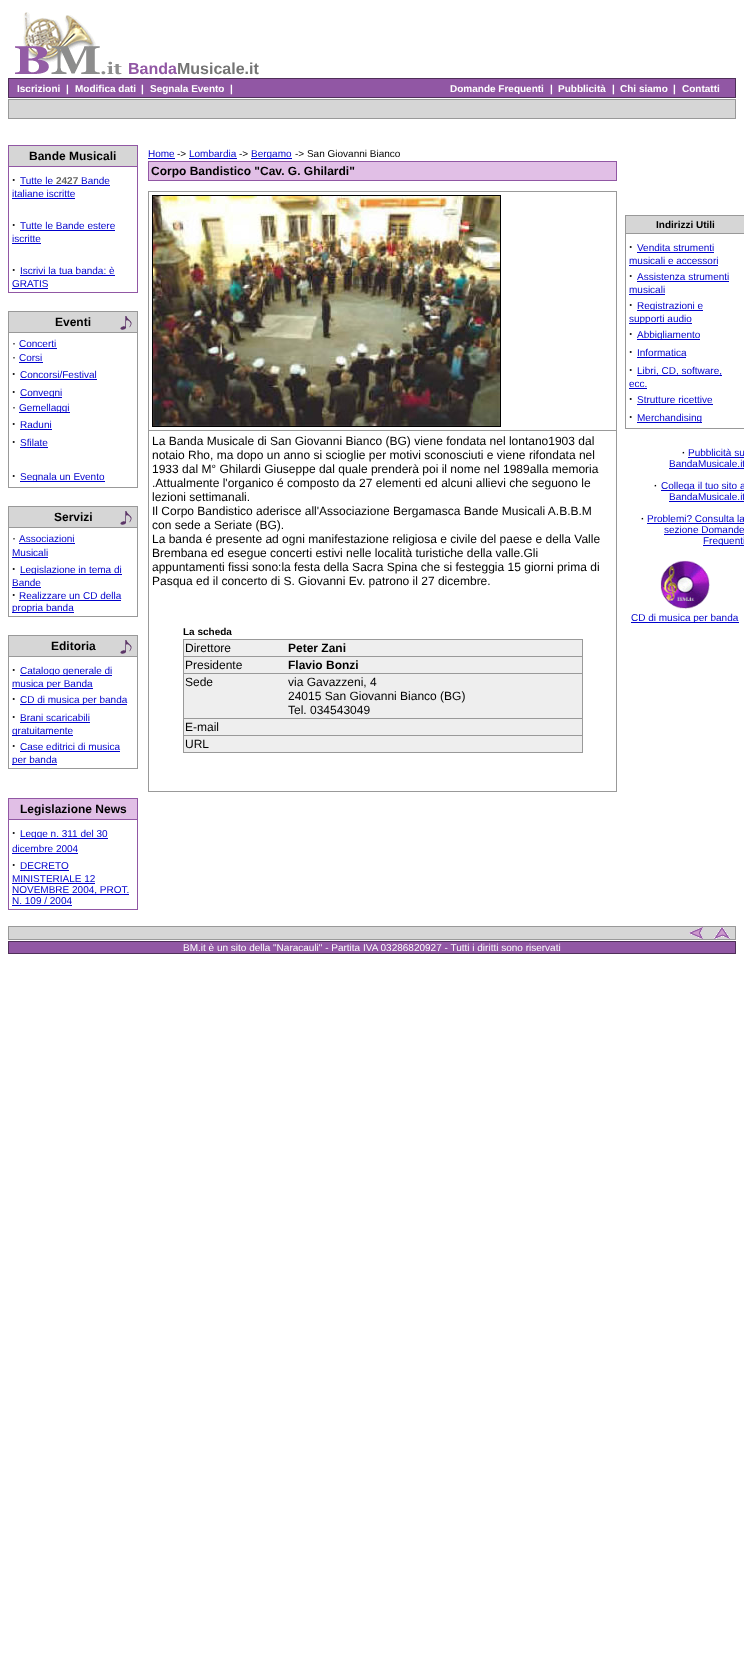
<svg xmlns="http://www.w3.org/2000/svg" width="744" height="1677">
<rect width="100%" height="100%" fill="#fff"/>
<image x="15" y="12" width="107" height="63" href="media/1.png"/>
<text x="128" y="74" style="font-family:Liberation Sans;font-size:16px;font-weight:bold;fill:#9157a4">Banda</text>
<text x="177" y="74" style="font-family:Liberation Sans;font-size:16px;font-weight:bold;fill:#747474">Musicale.it</text>
<rect x="8" y="78" width="728" height="20" fill="#4f2f59"/>
<rect x="9" y="79" width="726" height="18" fill="#9157a4"/>
<text x="17" y="92" style="font-family:Liberation Sans;font-size:10px;font-weight:bold;fill:#fff">Iscrizioni</text>
<text x="66" y="92" style="font-family:Liberation Sans;font-size:10px;font-weight:bold;fill:#fff">|</text>
<text x="75" y="92" style="font-family:Liberation Sans;font-size:10px;font-weight:bold;fill:#fff">Modifica dati</text>
<text x="141" y="92" style="font-family:Liberation Sans;font-size:10px;font-weight:bold;fill:#fff">|</text>
<text x="150" y="92" style="font-family:Liberation Sans;font-size:10px;font-weight:bold;fill:#fff">Segnala Evento</text>
<text x="230" y="92" style="font-family:Liberation Sans;font-size:10px;font-weight:bold;fill:#fff">|</text>
<text x="450" y="92" style="font-family:Liberation Sans;font-size:10px;font-weight:bold;fill:#fff">Domande Frequenti</text>
<text x="550" y="92" style="font-family:Liberation Sans;font-size:10px;font-weight:bold;fill:#fff">|</text>
<text x="558" y="92" style="font-family:Liberation Sans;font-size:10px;font-weight:bold;fill:#fff">Pubblicità</text>
<text x="612" y="92" style="font-family:Liberation Sans;font-size:10px;font-weight:bold;fill:#fff">|</text>
<text x="620" y="92" style="font-family:Liberation Sans;font-size:10px;font-weight:bold;fill:#fff">Chi siamo</text>
<text x="673" y="92" style="font-family:Liberation Sans;font-size:10px;font-weight:bold;fill:#fff">|</text>
<text x="682" y="92" style="font-family:Liberation Sans;font-size:10px;font-weight:bold;fill:#fff">Contatti</text>
<rect x="8" y="99" width="728" height="20" fill="#999"/>
<rect x="9" y="100" width="726" height="18" fill="#d6d6d6"/>
<rect x="8" y="145" width="130" height="148" fill="#9157a4"/>
<rect x="9" y="146" width="128" height="20" fill="#d6d6d6"/>
<text x="29" y="160" style="font-family:Liberation Sans;font-size:12px;font-weight:bold;fill:#000">Bande Musicali</text>
<rect x="9" y="167" width="128" height="125" fill="#fff"/>
<text x="12" y="184" style="font-family:Liberation Sans;font-size:12px;font-weight:bold;fill:#000">·</text>
<text x="20" y="184" style="font-family:Liberation Sans;font-size:10px;fill:#00c">Tutte le</text>
<rect x="20" y="185" width="90" height="1" fill="#00c"/>
<text x="56" y="184" style="font-family:Liberation Sans;font-size:10px;font-weight:bold;fill:#666">2427</text>
<text x="81" y="184" style="font-family:Liberation Sans;font-size:10px;fill:#00c">Bande</text>
<text x="12" y="197" style="font-family:Liberation Sans;font-size:10px;fill:#00c">italiane iscritte</text>
<rect x="12" y="198" width="63" height="1" fill="#00c"/>
<text x="12" y="229" style="font-family:Liberation Sans;font-size:12px;font-weight:bold;fill:#000">·</text>
<text x="20" y="229" style="font-family:Liberation Sans;font-size:10px;fill:#00c">Tutte le Bande estere</text>
<rect x="20" y="230" width="95" height="1" fill="#00c"/>
<text x="12" y="242" style="font-family:Liberation Sans;font-size:10px;fill:#00c">iscritte</text>
<rect x="12" y="243" width="29" height="1" fill="#00c"/>
<text x="12" y="274" style="font-family:Liberation Sans;font-size:12px;font-weight:bold;fill:#000">·</text>
<text x="20" y="274" style="font-family:Liberation Sans;font-size:10px;fill:#00c">Iscrivi la tua banda: è</text>
<rect x="20" y="275" width="95" height="1" fill="#00c"/>
<text x="12" y="287" style="font-family:Liberation Sans;font-size:10px;fill:#00c">GRATIS</text>
<rect x="12" y="288" width="36" height="1" fill="#00c"/>
<rect x="8" y="311" width="130" height="177" fill="#999"/>
<rect x="9" y="312" width="128" height="20" fill="#d6d6d6"/>
<image x="120" y="316" width="12" height="14" href="media/2.png"/>
<text x="55" y="326" style="font-family:Liberation Sans;font-size:12px;font-weight:bold;fill:#000">Eventi</text>
<rect x="9" y="333" width="128" height="154" fill="#fff"/>
<text x="12" y="347" style="font-family:Liberation Sans;font-size:12px;fill:#000">·</text>
<text x="19" y="347" style="font-family:Liberation Sans;font-size:10px;fill:#00c">Concerti</text>
<rect x="19" y="348" width="38" height="1" fill="#00c"/>
<text x="12" y="361" style="font-family:Liberation Sans;font-size:12px;fill:#000">·</text>
<text x="19" y="361" style="font-family:Liberation Sans;font-size:10px;fill:#00c">Corsi</text>
<rect x="19" y="362" width="24" height="1" fill="#00c"/>
<text x="12" y="378" style="font-family:Liberation Sans;font-size:12px;font-weight:bold;fill:#000">·</text>
<text x="20" y="378" style="font-family:Liberation Sans;font-size:10px;fill:#00c">Concorsi/Festival</text>
<rect x="20" y="379" width="77" height="1" fill="#00c"/>
<text x="12" y="396" style="font-family:Liberation Sans;font-size:12px;font-weight:bold;fill:#000">·</text>
<rect x="20" y="397" width="42" height="1" fill="#00c"/>
<text x="20" y="396" style="font-family:Liberation Sans;font-size:10px;fill:#00c">Convegni</text>
<text x="12" y="411" style="font-family:Liberation Sans;font-size:12px;fill:#000">·</text>
<rect x="19" y="412" width="51" height="1" fill="#00c"/>
<text x="19" y="411" style="font-family:Liberation Sans;font-size:10px;fill:#00c">Gemellaggi</text>
<text x="12" y="428" style="font-family:Liberation Sans;font-size:12px;font-weight:bold;fill:#000">·</text>
<text x="20" y="428" style="font-family:Liberation Sans;font-size:10px;fill:#00c">Raduni</text>
<rect x="20" y="429" width="32" height="1" fill="#00c"/>
<text x="12" y="446" style="font-family:Liberation Sans;font-size:12px;font-weight:bold;fill:#000">·</text>
<text x="20" y="446" style="font-family:Liberation Sans;font-size:10px;fill:#00c">Sfilate</text>
<rect x="20" y="447" width="28" height="1" fill="#00c"/>
<text x="12" y="480" style="font-family:Liberation Sans;font-size:12px;font-weight:bold;fill:#000">·</text>
<rect x="20" y="481" width="85" height="1" fill="#00c"/>
<text x="20" y="480" style="font-family:Liberation Sans;font-size:10px;fill:#00c">Segnala un Evento</text>
<rect x="8" y="506" width="130" height="111" fill="#999"/>
<rect x="9" y="507" width="128" height="20" fill="#d6d6d6"/>
<image x="120" y="511" width="12" height="14" href="media/2.png"/>
<text x="54" y="521" style="font-family:Liberation Sans;font-size:12px;font-weight:bold;fill:#000">Servizi</text>
<rect x="9" y="528" width="128" height="88" fill="#fff"/>
<text x="12" y="542" style="font-family:Liberation Sans;font-size:12px;fill:#000">·</text>
<text x="19" y="542" style="font-family:Liberation Sans;font-size:10px;fill:#00c">Associazioni</text>
<rect x="19" y="543" width="56" height="1" fill="#00c"/>
<text x="12" y="556" style="font-family:Liberation Sans;font-size:10px;fill:#00c">Musicali</text>
<rect x="12" y="557" width="36" height="1" fill="#00c"/>
<text x="12" y="573" style="font-family:Liberation Sans;font-size:12px;font-weight:bold;fill:#000">·</text>
<rect x="20" y="574" width="102" height="1" fill="#00c"/>
<text x="20" y="573" style="font-family:Liberation Sans;font-size:10px;fill:#00c">Legislazione in tema di</text>
<text x="12" y="586" style="font-family:Liberation Sans;font-size:10px;fill:#00c">Bande</text>
<rect x="12" y="587" width="29" height="1" fill="#00c"/>
<text x="12" y="599" style="font-family:Liberation Sans;font-size:12px;font-weight:bold;fill:#000">·</text>
<text x="19" y="599" style="font-family:Liberation Sans;font-size:10px;fill:#00c">Realizzare un CD della</text>
<rect x="19" y="600" width="102" height="1" fill="#00c"/>
<rect x="12" y="612" width="62" height="1" fill="#00c"/>
<text x="12" y="611" style="font-family:Liberation Sans;font-size:10px;fill:#00c">propria banda</text>
<rect x="8" y="635" width="130" height="134" fill="#999"/>
<rect x="9" y="636" width="128" height="20" fill="#d6d6d6"/>
<image x="120" y="640" width="12" height="14" href="media/2.png"/>
<text x="51" y="650" style="font-family:Liberation Sans;font-size:12px;font-weight:bold;fill:#000">Editoria</text>
<rect x="9" y="657" width="128" height="111" fill="#fff"/>
<text x="12" y="674" style="font-family:Liberation Sans;font-size:12px;font-weight:bold;fill:#000">·</text>
<rect x="20" y="675" width="92" height="1" fill="#00c"/>
<text x="20" y="674" style="font-family:Liberation Sans;font-size:10px;fill:#00c">Catalogo generale di</text>
<rect x="12" y="688" width="81" height="1" fill="#00c"/>
<text x="12" y="687" style="font-family:Liberation Sans;font-size:10px;fill:#00c">musica per Banda</text>
<text x="12" y="703" style="font-family:Liberation Sans;font-size:12px;font-weight:bold;fill:#000">·</text>
<rect x="20" y="704" width="107" height="1" fill="#00c"/>
<text x="20" y="703" style="font-family:Liberation Sans;font-size:10px;fill:#00c">CD di musica per banda</text>
<text x="12" y="721" style="font-family:Liberation Sans;font-size:12px;font-weight:bold;fill:#000">·</text>
<text x="20" y="721" style="font-family:Liberation Sans;font-size:10px;fill:#00c">Brani scaricabili</text>
<rect x="20" y="722" width="70" height="1" fill="#00c"/>
<rect x="12" y="735" width="61" height="1" fill="#00c"/>
<text x="12" y="734" style="font-family:Liberation Sans;font-size:10px;fill:#00c">gratuitamente</text>
<text x="12" y="750" style="font-family:Liberation Sans;font-size:12px;font-weight:bold;fill:#000">·</text>
<text x="20" y="750" style="font-family:Liberation Sans;font-size:10px;fill:#00c">Case editrici di musica</text>
<rect x="20" y="751" width="100" height="1" fill="#00c"/>
<rect x="12" y="764" width="45" height="1" fill="#00c"/>
<text x="12" y="763" style="font-family:Liberation Sans;font-size:10px;fill:#00c">per banda</text>
<rect x="8" y="798" width="130" height="112" fill="#9157a4"/>
<rect x="9" y="799" width="128" height="20" fill="#e1bfe6"/>
<text x="20" y="813" style="font-family:Liberation Sans;font-size:12px;font-weight:bold;fill:#000">Legislazione News</text>
<rect x="9" y="820" width="128" height="89" fill="#fff"/>
<text x="12" y="837" style="font-family:Liberation Sans;font-size:12px;font-weight:bold;fill:#000">·</text>
<rect x="20" y="838" width="88" height="1" fill="#00c"/>
<text x="20" y="837" style="font-family:Liberation Sans;font-size:10px;fill:#00c">Legge n. 311 del 30</text>
<text x="12" y="852" style="font-family:Liberation Sans;font-size:10px;fill:#00c">dicembre 2004</text>
<rect x="12" y="853" width="66" height="1" fill="#00c"/>
<text x="12" y="869" style="font-family:Liberation Sans;font-size:12px;font-weight:bold;fill:#000">·</text>
<text x="20" y="869" style="font-family:Liberation Sans;font-size:10px;fill:#00c">DECRETO</text>
<rect x="20" y="870" width="49" height="1" fill="#00c"/>
<text x="12" y="882" style="font-family:Liberation Sans;font-size:10px;fill:#00c">MINISTERIALE 12</text>
<rect x="12" y="883" width="83" height="1" fill="#00c"/>
<rect x="12" y="894" width="117" height="1" fill="#00c"/>
<text x="12" y="893" style="font-family:Liberation Sans;font-size:10px;fill:#00c">NOVEMBRE 2004, PROT.</text>
<text x="12" y="904" style="font-family:Liberation Sans;font-size:10px;fill:#00c">N. 109 / 2004</text>
<rect x="12" y="905" width="60" height="1" fill="#00c"/>
<text x="148" y="157" style="font-family:Liberation Sans;font-size:10px;fill:#00c">Home</text>
<rect x="148" y="158" width="27" height="1" fill="#00c"/>
<text x="177" y="157" style="font-family:Liberation Sans;font-size:10px;fill:#000">-&gt;</text>
<text x="189" y="157" style="font-family:Liberation Sans;font-size:10px;fill:#00c">Lombardia</text>
<rect x="189" y="158" width="48" height="1" fill="#00c"/>
<text x="239" y="157" style="font-family:Liberation Sans;font-size:10px;fill:#000">-&gt;</text>
<rect x="251" y="158" width="41" height="1" fill="#00c"/>
<text x="251" y="157" style="font-family:Liberation Sans;font-size:10px;fill:#00c">Bergamo</text>
<text x="295" y="157" style="font-family:Liberation Sans;font-size:10px;fill:#000">-&gt; San Giovanni Bianco</text>
<rect x="148" y="161" width="469" height="20" fill="#9157a4"/>
<rect x="149" y="162" width="467" height="18" fill="#e1bfe6"/>
<text x="151" y="175" style="font-family:Liberation Sans;font-size:12px;font-weight:bold;fill:#000">Corpo Bandistico "Cav. G. Ghilardi"</text>
<rect x="148" y="191" width="469" height="601" fill="#999"/>
<rect x="149" y="192" width="467" height="238" fill="#fff"/>
<rect x="152.5" y="195.5" width="348" height="231" fill="none" stroke="#000"/>
<image x="153" y="196" width="347" height="230" href="media/3.png"/>
<rect x="149" y="431" width="467" height="360" fill="#fff"/>
<text x="152" y="445" style="font-family:Liberation Sans;font-size:12px;fill:#000">La Banda Musicale di San Giovanni Bianco (BG) viene fondata nel lontano1903 dal</text>
<text x="152" y="459" style="font-family:Liberation Sans;font-size:12px;fill:#000">notaio Rho, ma dopo un anno si scioglie per motivi sconosciuti e viene rifondata nel</text>
<text x="152" y="473" style="font-family:Liberation Sans;font-size:12px;fill:#000">1933 dal M° Ghilardi Giuseppe dal quale prenderà poi il nome nel 1989alla memoria</text>
<text x="152" y="487" style="font-family:Liberation Sans;font-size:12px;fill:#000">.Attualmente l'organico é composto da 27 elementi ed alcuni allievi che seguono le</text>
<text x="152" y="501" style="font-family:Liberation Sans;font-size:12px;fill:#000">lezioni settimanali.</text>
<text x="152" y="515" style="font-family:Liberation Sans;font-size:12px;fill:#000">Il Corpo Bandistico aderisce all'Associazione Bergamasca Bande Musicali A.B.B.M</text>
<text x="152" y="529" style="font-family:Liberation Sans;font-size:12px;fill:#000">con sede a Seriate (BG).</text>
<text x="152" y="543" style="font-family:Liberation Sans;font-size:12px;fill:#000">La banda é presente ad ogni manifestazione religiosa e civile del paese e della Valle</text>
<text x="152" y="557" style="font-family:Liberation Sans;font-size:12px;fill:#000">Brembana ed esegue concerti estivi nelle località turistiche della valle.Gli</text>
<text x="152" y="571" style="font-family:Liberation Sans;font-size:12px;fill:#000">appuntamenti fissi sono:la festa della Sacra Spina che si festeggia 15 giorni prima di</text>
<text x="152" y="585" style="font-family:Liberation Sans;font-size:12px;fill:#000">Pasqua ed il concerto di S. Giovanni Ev. patrono il 27 dicembre.</text>
<text x="183" y="635" style="font-family:Liberation Sans;font-size:10px;font-weight:bold;fill:#000">La scheda</text>
<rect x="183" y="639" width="400" height="114" fill="#999"/>
<rect x="184" y="640" width="398" height="16" fill="#eee"/>
<text x="185" y="652" style="font-family:Liberation Sans;font-size:12px;fill:#000">Direttore</text>
<text x="288" y="652" style="font-family:Liberation Sans;font-size:12px;font-weight:bold;fill:#000">Peter Zani</text>
<rect x="184" y="657" width="398" height="16" fill="#eee"/>
<text x="185" y="669" style="font-family:Liberation Sans;font-size:12px;fill:#000">Presidente</text>
<text x="288" y="669" style="font-family:Liberation Sans;font-size:12px;font-weight:bold;fill:#000">Flavio Bonzi</text>
<rect x="184" y="674" width="398" height="44" fill="#eee"/>
<text x="185" y="686" style="font-family:Liberation Sans;font-size:12px;fill:#000">Sede</text>
<text x="288" y="686" style="font-family:Liberation Sans;font-size:12px;fill:#000">via Gavazzeni, 4</text>
<text x="288" y="700" style="font-family:Liberation Sans;font-size:12px;fill:#000">24015 San Giovanni Bianco (BG)</text>
<text x="288" y="714" style="font-family:Liberation Sans;font-size:12px;fill:#000">Tel. 034543049</text>
<rect x="184" y="719" width="398" height="16" fill="#eee"/>
<text x="185" y="731" style="font-family:Liberation Sans;font-size:12px;fill:#000">E-mail</text>
<rect x="184" y="736" width="398" height="16" fill="#eee"/>
<text x="185" y="748" style="font-family:Liberation Sans;font-size:12px;fill:#000">URL</text>
<rect x="625" y="215" width="119" height="214" fill="#999"/>
<rect x="626" y="216" width="118" height="17" fill="#d6d6d6"/>
<text x="656" y="228" style="font-family:Liberation Sans;font-size:10px;font-weight:bold;fill:#000">Indirizzi Utili</text>
<rect x="626" y="234" width="118" height="194" fill="#fff"/>
<text x="629" y="251" style="font-family:Liberation Sans;font-size:12px;font-weight:bold;fill:#000">·</text>
<text x="637" y="251" style="font-family:Liberation Sans;font-size:10px;fill:#00c">Vendita strumenti</text>
<rect x="637" y="252" width="77" height="1" fill="#00c"/>
<text x="629" y="264" style="font-family:Liberation Sans;font-size:10px;fill:#00c">musicali e accessori</text>
<rect x="629" y="265" width="89" height="1" fill="#00c"/>
<text x="629" y="280" style="font-family:Liberation Sans;font-size:12px;font-weight:bold;fill:#000">·</text>
<text x="637" y="280" style="font-family:Liberation Sans;font-size:10px;fill:#00c">Assistenza strumenti</text>
<rect x="637" y="281" width="92" height="1" fill="#00c"/>
<text x="629" y="293" style="font-family:Liberation Sans;font-size:10px;fill:#00c">musicali</text>
<rect x="629" y="294" width="36" height="1" fill="#00c"/>
<text x="629" y="309" style="font-family:Liberation Sans;font-size:12px;font-weight:bold;fill:#000">·</text>
<rect x="637" y="310" width="66" height="1" fill="#00c"/>
<text x="637" y="309" style="font-family:Liberation Sans;font-size:10px;fill:#00c">Registrazioni e</text>
<rect x="629" y="323" width="63" height="1" fill="#00c"/>
<text x="629" y="322" style="font-family:Liberation Sans;font-size:10px;fill:#00c">supporti audio</text>
<text x="629" y="338" style="font-family:Liberation Sans;font-size:12px;font-weight:bold;fill:#000">·</text>
<rect x="637" y="339" width="63" height="1" fill="#00c"/>
<text x="637" y="338" style="font-family:Liberation Sans;font-size:10px;fill:#00c">Abbigliamento</text>
<text x="629" y="356" style="font-family:Liberation Sans;font-size:12px;font-weight:bold;fill:#000">·</text>
<text x="637" y="356" style="font-family:Liberation Sans;font-size:10px;fill:#00c">Informatica</text>
<rect x="637" y="357" width="49" height="1" fill="#00c"/>
<text x="629" y="374" style="font-family:Liberation Sans;font-size:12px;font-weight:bold;fill:#000">·</text>
<rect x="637" y="375" width="85" height="1" fill="#00c"/>
<text x="637" y="374" style="font-family:Liberation Sans;font-size:10px;fill:#00c">Libri, CD, software,</text>
<text x="629" y="387" style="font-family:Liberation Sans;font-size:10px;fill:#00c">ecc.</text>
<rect x="629" y="388" width="18" height="1" fill="#00c"/>
<text x="629" y="403" style="font-family:Liberation Sans;font-size:12px;font-weight:bold;fill:#000">·</text>
<text x="637" y="403" style="font-family:Liberation Sans;font-size:10px;fill:#00c">Strutture ricettive</text>
<rect x="637" y="404" width="76" height="1" fill="#00c"/>
<text x="629" y="421" style="font-family:Liberation Sans;font-size:12px;font-weight:bold;fill:#000">·</text>
<rect x="637" y="422" width="65" height="1" fill="#00c"/>
<text x="637" y="421" style="font-family:Liberation Sans;font-size:10px;fill:#00c">Merchandising</text>
<text x="682" y="456" style="font-family:Liberation Sans;font-size:10px;font-weight:bold;fill:#000">·</text>
<text x="688" y="456" style="font-family:Liberation Sans;font-size:10px;fill:#00c">Pubblicità su</text>
<rect x="688" y="457" width="56" height="1" fill="#00c"/>
<text x="669" y="467" style="font-family:Liberation Sans;font-size:10px;fill:#00c">BandaMusicale.it</text>
<rect x="669" y="468" width="75" height="1" fill="#00c"/>
<text x="654" y="489" style="font-family:Liberation Sans;font-size:10px;font-weight:bold;fill:#000">·</text>
<rect x="661" y="490" width="83" height="1" fill="#00c"/>
<text x="661" y="489" style="font-family:Liberation Sans;font-size:10px;fill:#00c">Collega il tuo sito a</text>
<text x="669" y="500" style="font-family:Liberation Sans;font-size:10px;fill:#00c">BandaMusicale.it</text>
<rect x="669" y="501" width="75" height="1" fill="#00c"/>
<text x="641" y="522" style="font-family:Liberation Sans;font-size:10px;font-weight:bold;fill:#000">·</text>
<text x="647" y="522" style="font-family:Liberation Sans;font-size:10px;fill:#00c">Problemi? Consulta la</text>
<rect x="647" y="523" width="97" height="1" fill="#00c"/>
<text x="664" y="533" style="font-family:Liberation Sans;font-size:10px;fill:#00c">sezione Domande</text>
<rect x="664" y="534" width="80" height="1" fill="#00c"/>
<rect x="703" y="545" width="41" height="1" fill="#00c"/>
<text x="703" y="544" style="font-family:Liberation Sans;font-size:10px;fill:#00c">Frequenti</text>
<image x="660" y="560" width="50" height="49" href="media/4.png"/>
<rect x="631" y="622" width="108" height="1" fill="#00c"/>
<text x="631" y="621" style="font-family:Liberation Sans;font-size:10px;fill:#00c">CD di musica per banda</text>
<rect x="8" y="926" width="728" height="14" fill="#999"/>
<rect x="9" y="927" width="726" height="12" fill="#d6d6d6"/>
<image x="689" y="927" width="14" height="12" href="media/5.png"/>
<image x="714" y="927" width="16" height="12" href="media/6.png"/>
<rect x="8" y="941" width="728" height="13" fill="#4f2f59"/>
<rect x="9" y="942" width="726" height="11" fill="#9157a4"/>
<text x="183" y="951" style="font-family:Liberation Sans;font-size:10px;fill:#fff">BM.it è un sito della "Naracauli" - Partita IVA 03286820927 - Tutti i diritti sono riservati</text>
</svg>
